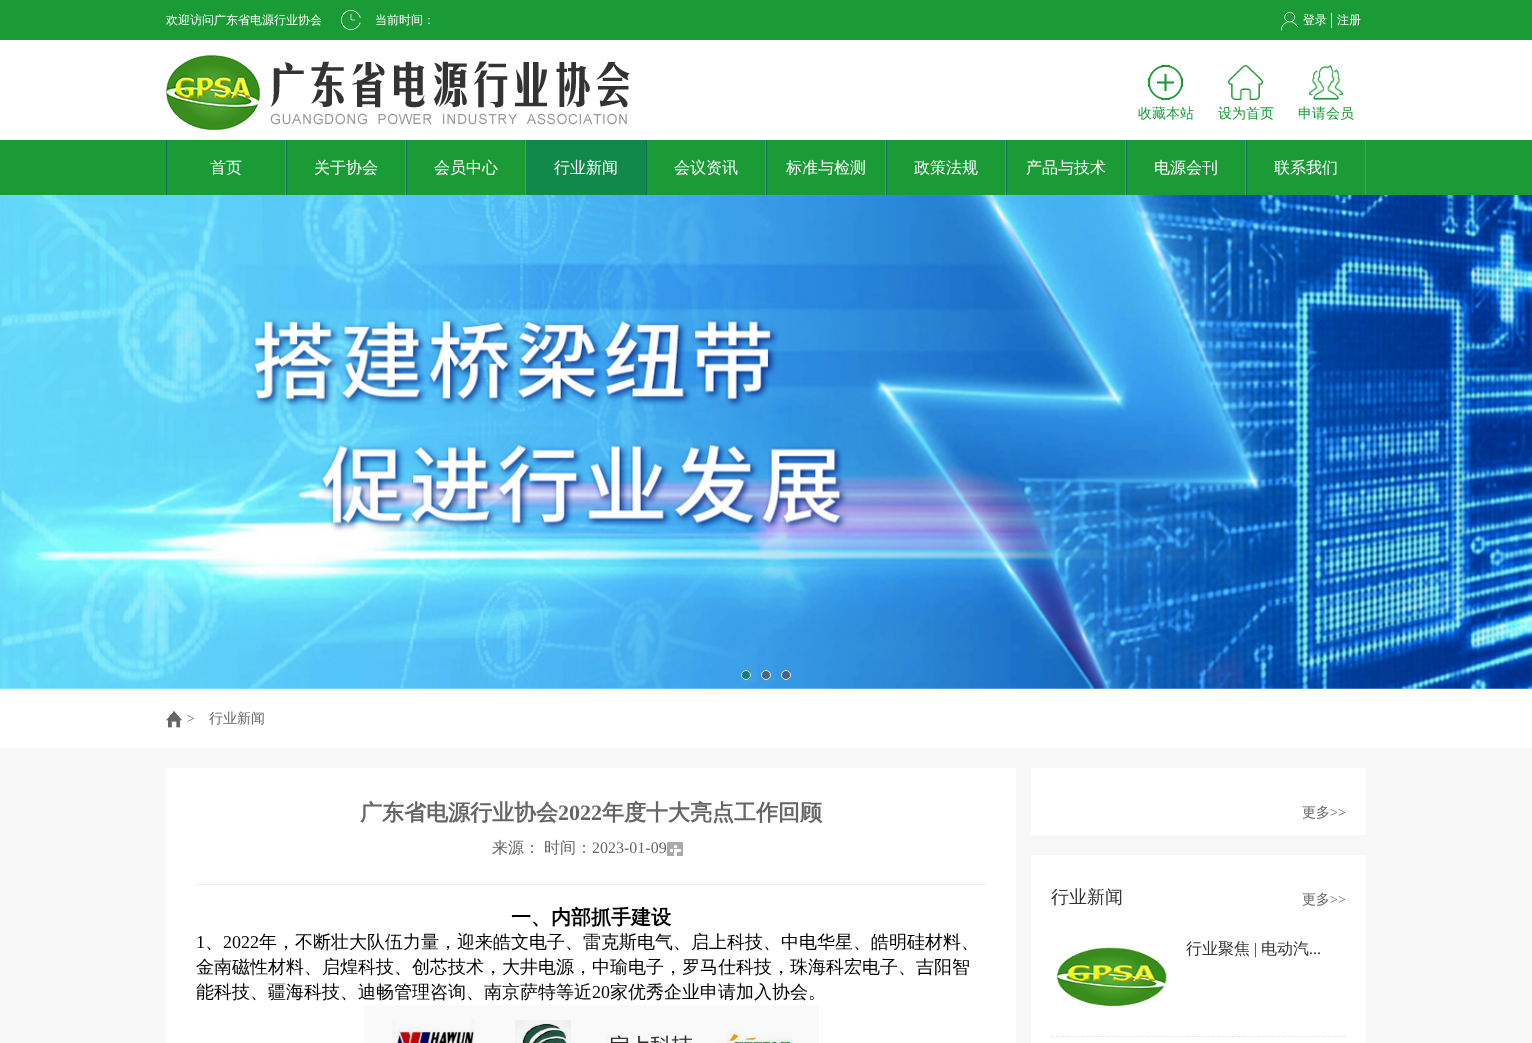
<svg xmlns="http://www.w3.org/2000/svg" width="1532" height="1043">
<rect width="100%" height="100%" fill="#fff"/>
<rect width="1532" height="40" fill="#1a9b36"/>
<text x="166" y="24" style="font-family:WenQuanYi Zen Hei;font-size:12px;font-weight:500;fill:#fff">欢迎访问广东省电源行业协会</text>
<image x="341" y="10" width="20" height="20" href="media/1.png"/>
<text x="375" y="24" style="font-family:WenQuanYi Zen Hei;font-size:12px;font-weight:500;fill:#fff">当前时间：</text>
<image x="1281" y="12" width="17" height="19" href="media/2.png"/>
<rect x="1331" y="13" width="1" height="15" fill="#fff"/>
<text x="1303" y="24" style="font-family:WenQuanYi Zen Hei;font-size:12px;font-weight:500;fill:#fff">登录</text>
<text x="1337" y="24" style="font-family:WenQuanYi Zen Hei;font-size:12px;font-weight:500;fill:#fff">注册</text>
<image x="166" y="55" width="464" height="75" href="media/3.png"/>
<image x="1148" y="65" width="35" height="35" href="media/4.png"/>
<text x="1138" y="118" style="font-family:WenQuanYi Zen Hei;font-size:14px;font-weight:500;fill:#1a9b36">收藏本站</text>
<image x="1228" y="65" width="35" height="35" href="media/5.png"/>
<text x="1218" y="118" style="font-family:WenQuanYi Zen Hei;font-size:14px;font-weight:500;fill:#1a9b36">设为首页</text>
<image x="1308" y="65" width="35" height="35" href="media/6.png"/>
<text x="1298" y="118" style="font-family:WenQuanYi Zen Hei;font-size:14px;font-weight:500;fill:#1a9b36">申请会员</text>
<rect y="140" width="1532" height="55" fill="#1a9b36"/>
<rect x="285" y="140" width="1" height="55" fill="#26b745"/>
<rect x="166" y="140" width="1" height="55" fill="#0c725d"/>
<text x="210" y="173" style="font-family:WenQuanYi Zen Hei;font-size:16px;font-weight:500;fill:#fff">首页</text>
<rect x="405" y="140" width="1" height="55" fill="#26b745"/>
<rect x="286" y="140" width="1" height="55" fill="#0c725d"/>
<text x="314" y="173" style="font-family:WenQuanYi Zen Hei;font-size:16px;font-weight:500;fill:#fff">关于协会</text>
<rect x="525" y="140" width="1" height="55" fill="#26b745"/>
<rect x="406" y="140" width="1" height="55" fill="#0c725d"/>
<text x="434" y="173" style="font-family:WenQuanYi Zen Hei;font-size:16px;font-weight:500;fill:#fff">会员中心</text>
<rect x="526" y="140" width="120" height="55" fill="#11894b"/>
<text x="554" y="173" style="font-family:WenQuanYi Zen Hei;font-size:16px;font-weight:500;fill:#fff">行业新闻</text>
<rect x="765" y="140" width="1" height="55" fill="#26b745"/>
<rect x="646" y="140" width="1" height="55" fill="#0c725d"/>
<text x="674" y="173" style="font-family:WenQuanYi Zen Hei;font-size:16px;font-weight:500;fill:#fff">会议资讯</text>
<rect x="885" y="140" width="1" height="55" fill="#26b745"/>
<rect x="766" y="140" width="1" height="55" fill="#0c725d"/>
<text x="786" y="173" style="font-family:WenQuanYi Zen Hei;font-size:16px;font-weight:500;fill:#fff">标准与检测</text>
<rect x="1005" y="140" width="1" height="55" fill="#26b745"/>
<rect x="886" y="140" width="1" height="55" fill="#0c725d"/>
<text x="914" y="173" style="font-family:WenQuanYi Zen Hei;font-size:16px;font-weight:500;fill:#fff">政策法规</text>
<rect x="1125" y="140" width="1" height="55" fill="#26b745"/>
<rect x="1006" y="140" width="1" height="55" fill="#0c725d"/>
<text x="1026" y="173" style="font-family:WenQuanYi Zen Hei;font-size:16px;font-weight:500;fill:#fff">产品与技术</text>
<rect x="1245" y="140" width="1" height="55" fill="#26b745"/>
<rect x="1126" y="140" width="1" height="55" fill="#0c725d"/>
<text x="1154" y="173" style="font-family:WenQuanYi Zen Hei;font-size:16px;font-weight:500;fill:#fff">电源会刊</text>
<rect x="1365" y="140" width="1" height="55" fill="#26b745"/>
<rect x="1246" y="140" width="1" height="55" fill="#0c725d"/>
<text x="1274" y="173" style="font-family:WenQuanYi Zen Hei;font-size:16px;font-weight:500;fill:#fff">联系我们</text>
<image x="0" y="195" width="1532" height="494" href="media/7.png"/>
<circle cx="746" cy="675" r="5" fill="#0c725dcc"/>
<circle cx="746" cy="675" r="4.5" fill="none" stroke="#ffffffcc"/>
<circle cx="766" cy="675" r="4.5" fill="#506372" stroke="#d8ebfa"/>
<circle cx="786" cy="675" r="4.5" fill="#4f6272" stroke="#d7eafa"/>
<rect y="748" width="1532" height="295" fill="#f8f8f8"/>
<image x="166" y="711" width="17" height="17" href="media/8.png"/>
<text x="187" y="723" style="font-family:Liberation Serif;font-size:14px;fill:#666">&gt;</text>
<text x="209" y="723" style="font-family:WenQuanYi Zen Hei;font-size:14px;font-weight:500;fill:#666">行业新闻</text>
<rect x="166" y="768" width="850" height="275" fill="#fff"/>
<rect x="196" y="884" width="790" height="1" fill="#eee"/>
<text x="360" y="820" style="font-family:WenQuanYi Zen Hei;font-size:22px;font-weight:bold;fill:#666">广东省电源行业协会</text>
<text x="558" y="820" style="font-family:Liberation Serif;font-size:22px;font-weight:bold;fill:#666">2022</text>
<text x="602" y="820" style="font-family:WenQuanYi Zen Hei;font-size:22px;font-weight:bold;fill:#666">年度十大亮点工作回顾</text>
<text x="492" y="853" style="font-family:WenQuanYi Zen Hei;font-size:16px;font-weight:500;fill:#666">来源：</text>
<text x="544" y="853" style="font-family:WenQuanYi Zen Hei;font-size:16px;font-weight:500;fill:#666">时间：</text>
<text x="592" y="853" style="font-family:Liberation Serif;font-size:16px;fill:#666">2023-01-09</text>
<image x="667" y="842" width="16" height="14" href="media/9.png"/>
<text x="511" y="924" style="font-family:WenQuanYi Zen Hei;font-size:20px;font-weight:bold;fill:#000">一、内部抓手建设</text>
<text x="196" y="948" style="font-family:Liberation Serif;font-size:18px;fill:#000">1</text>
<text x="205" y="948" style="font-family:WenQuanYi Zen Hei;font-size:18px;font-weight:500;fill:#000">、</text>
<text x="223" y="948" style="font-family:Liberation Serif;font-size:18px;fill:#000">2022</text>
<text x="259" y="948" style="font-family:WenQuanYi Zen Hei;font-size:18px;font-weight:500;fill:#000">年，不断壮大队伍力量，迎来皓文电子、雷克斯电气、启上科技、中电华星、皓明硅材料、</text>
<text x="196" y="973" style="font-family:WenQuanYi Zen Hei;font-size:18px;font-weight:500;fill:#000">金南磁性材料、启煌科技、创芯技术，大井电源，中瑜电子，罗马仕科技，珠海科宏电子、吉阳智</text>
<text x="196" y="998" style="font-family:WenQuanYi Zen Hei;font-size:18px;font-weight:500;fill:#000">能科技、疆海科技、迪畅管理咨询、南京萨特等近</text>
<text x="592" y="998" style="font-family:Liberation Serif;font-size:18px;fill:#000">20</text>
<text x="610" y="998" style="font-family:WenQuanYi Zen Hei;font-size:18px;font-weight:500;fill:#000">家优秀企业申请加入协会。</text>
<image x="364" y="1005" width="455" height="38" href="media/10.png"/>
<rect x="1031" y="768" width="335" height="67" fill="#fff"/>
<text x="1302" y="817" style="font-family:WenQuanYi Zen Hei;font-size:14px;font-weight:500;fill:#666">更多</text>
<text x="1330" y="817" style="font-family:Liberation Serif;font-size:14px;fill:#666">&gt;&gt;</text>
<rect x="1031" y="855" width="335" height="188" fill="#fff"/>
<text x="1051" y="903" style="font-family:WenQuanYi Zen Hei;font-size:18px;font-weight:500;fill:#333">行业新闻</text>
<text x="1302" y="904" style="font-family:WenQuanYi Zen Hei;font-size:14px;font-weight:500;fill:#666">更多</text>
<text x="1330" y="904" style="font-family:Liberation Serif;font-size:14px;fill:#666">&gt;&gt;</text>
<path d="M1051 1036.5h295" fill="none" stroke="#e5e5e5" stroke-dasharray="3 2.03"/>
<image x="1056" y="947" width="111" height="59" href="media/11.png"/>
<text x="1186" y="954" style="font-family:WenQuanYi Zen Hei;font-size:16px;font-weight:500;fill:#333">行业聚焦</text>
<text x="1254" y="954" style="font-family:Liberation Serif;font-size:16px;fill:#333">|</text>
<text x="1261" y="954" style="font-family:WenQuanYi Zen Hei;font-size:16px;font-weight:500;fill:#333">电动汽</text>
<text x="1309" y="954" style="font-family:Liberation Serif;font-size:16px;fill:#333">...</text>
</svg>
